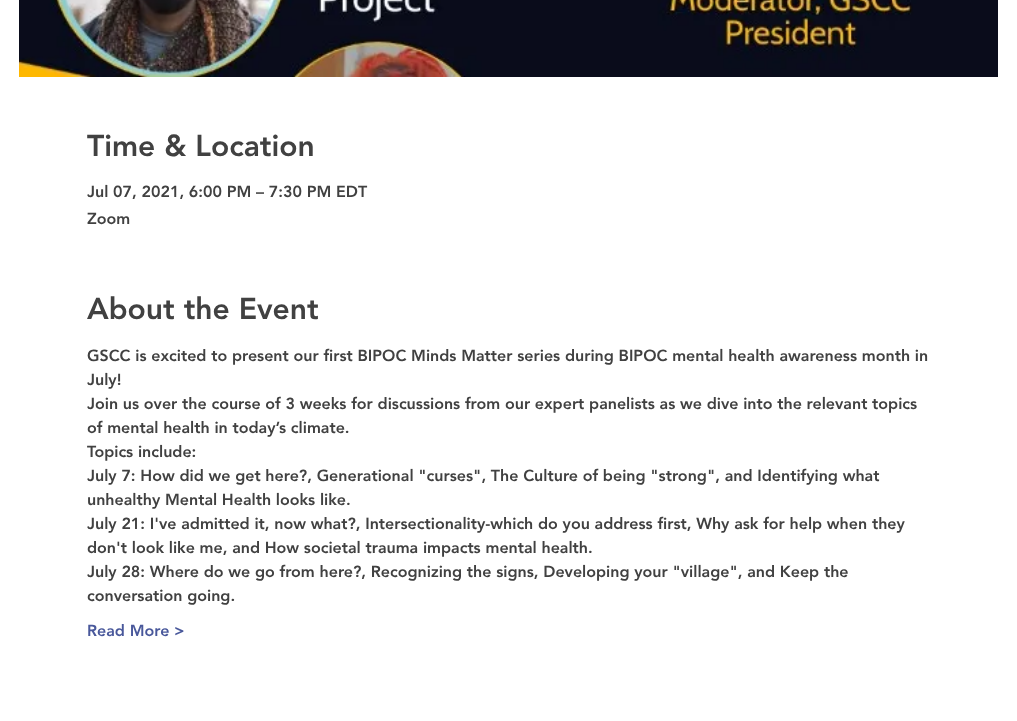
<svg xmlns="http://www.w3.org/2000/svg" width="1017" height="721">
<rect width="100%" height="100%" fill="#fff"/>
<image x="19" y="0" width="979" height="77" href="media/1.png"/>
<text x="87" y="156" style="font-family:'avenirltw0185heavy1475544';font-size:30px;font-weight:900;fill:#414141">Time &amp; Location</text>
<text x="87" y="197" style="font-family:'avenirltw0185heavy1475544';font-size:16px;font-weight:900;fill:#414141">Jul 07, 2021, 6:00 PM – 7:30 PM EDT</text>
<text x="87" y="224" style="font-family:'avenirltw0185heavy1475544';font-size:16px;font-weight:900;fill:#414141">Zoom</text>
<text x="87" y="319" style="font-family:'avenirltw0185heavy1475544';font-size:30px;font-weight:900;fill:#414141">About the Event</text>
<text x="87" y="361" style="font-family:'avenirltw0185heavy1475544';font-size:16px;font-weight:900;fill:#414141">GSCC is excited to present our first BIPOC Minds Matter series during BIPOC mental health awareness month in</text>
<text x="87" y="385" style="font-family:'avenirltw0185heavy1475544';font-size:16px;font-weight:900;fill:#414141">July!</text>
<text x="87" y="409" style="font-family:'avenirltw0185heavy1475544';font-size:16px;font-weight:900;fill:#414141">Join us over the course of 3 weeks for discussions from our expert panelists as we dive into the relevant topics</text>
<text x="87" y="433" style="font-family:'avenirltw0185heavy1475544';font-size:16px;font-weight:900;fill:#414141">of mental health in today’s climate.</text>
<text x="87" y="457" style="font-family:'avenirltw0185heavy1475544';font-size:16px;font-weight:900;fill:#414141">Topics include:</text>
<text x="87" y="481" style="font-family:'avenirltw0185heavy1475544';font-size:16px;font-weight:900;fill:#414141">July 7: How did we get here?, Generational "curses", The Culture of being "strong", and Identifying what</text>
<text x="87" y="505" style="font-family:'avenirltw0185heavy1475544';font-size:16px;font-weight:900;fill:#414141">unhealthy Mental Health looks like.</text>
<text x="87" y="529" style="font-family:'avenirltw0185heavy1475544';font-size:16px;font-weight:900;fill:#414141">July 21: I've admitted it, now what?, Intersectionality-which do you address first, Why ask for help when they</text>
<text x="87" y="553" style="font-family:'avenirltw0185heavy1475544';font-size:16px;font-weight:900;fill:#414141">don't look like me, and How societal trauma impacts mental health.</text>
<text x="87" y="577" style="font-family:'avenirltw0185heavy1475544';font-size:16px;font-weight:900;fill:#414141">July 28: Where do we go from here?, Recognizing the signs, Developing your "village", and Keep the</text>
<text x="87" y="601" style="font-family:'avenirltw0185heavy1475544';font-size:16px;font-weight:900;fill:#414141">conversation going.</text>
<text x="87" y="636" style="font-family:'avenirltw0185heavy1475544';font-size:16px;font-weight:900;fill:#49589b">Read More &gt;</text>
</svg>
